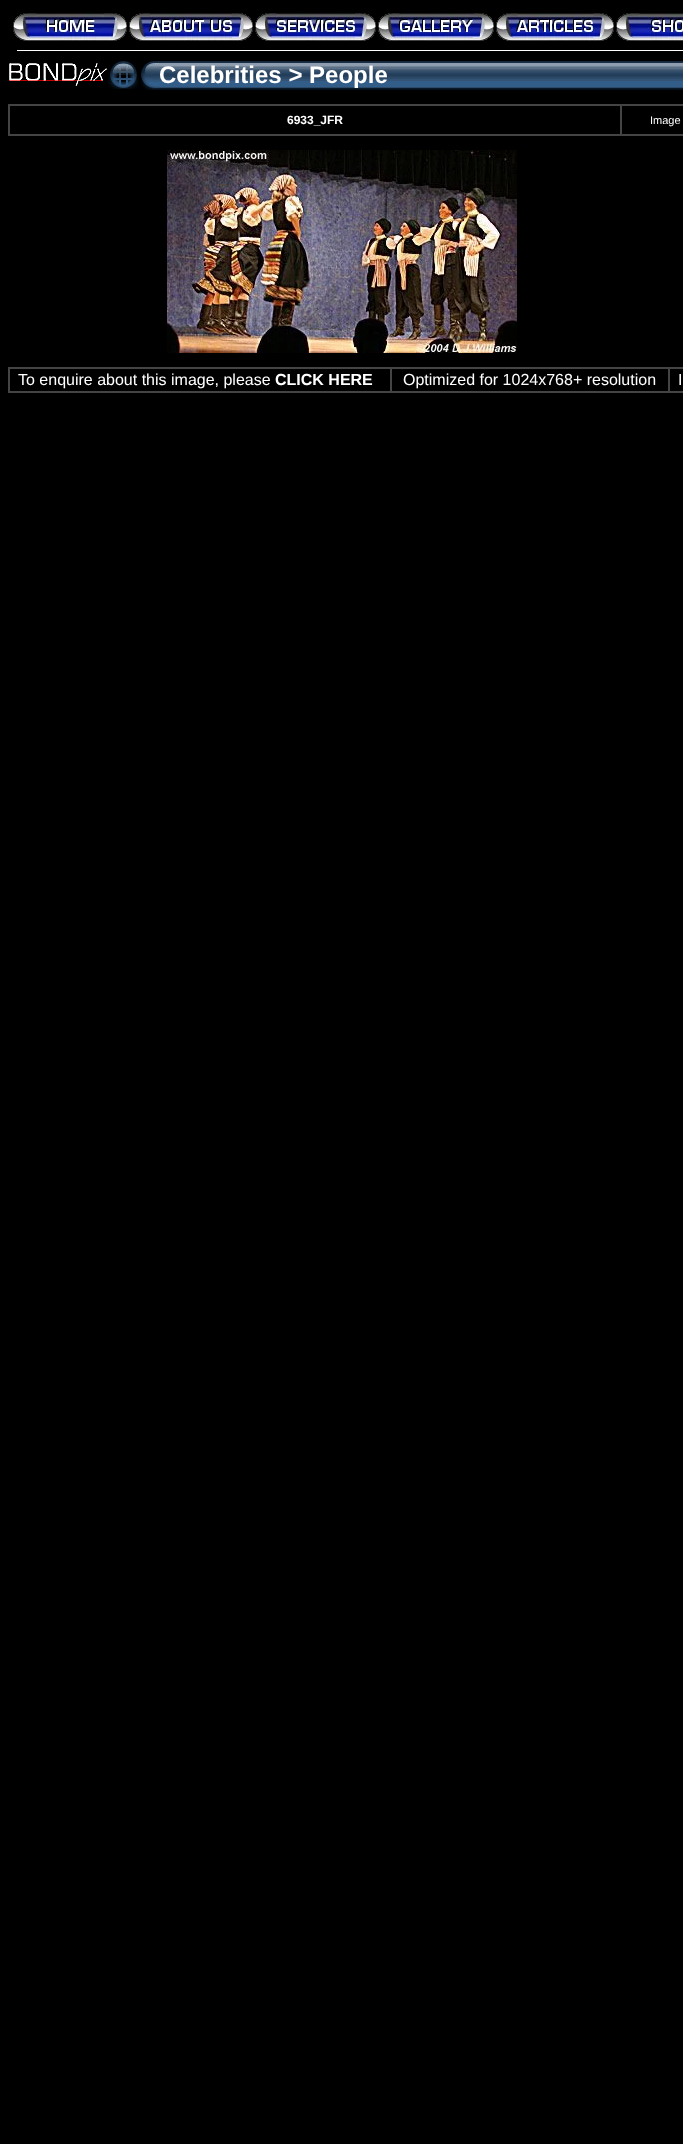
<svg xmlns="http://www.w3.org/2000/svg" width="683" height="2144">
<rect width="100%" height="100%" fill="#000"/>
<image x="13" y="13" width="114" height="28" href="media/1.png"/>
<image x="129" y="13" width="124" height="28" href="media/2.png"/>
<image x="255" y="13" width="121" height="28" href="media/3.png"/>
<image x="378" y="13" width="116" height="28" href="media/4.png"/>
<image x="496" y="13" width="118" height="28" href="media/5.png"/>
<image x="616" y="13" width="67" height="28" href="media/6.png"/>
<rect x="17" y="50" width="666" height="1" fill="#fff"/>
<image x="9" y="63" width="98" height="23" href="media/7.png"/>
<image x="108" y="61" width="31" height="28" href="media/8.png"/>
<image x="141" y="61" width="18" height="29" href="media/9.png"/>
<image x="159" y="61" width="524" height="29" href="media/10.png"/>
<text x="159" y="83" style="font-family:Liberation Sans;font-size:24px;font-weight:bold;fill:#fff">Celebrities &gt; People</text>
<rect x="8.5" y="104.5" width="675" height="31" fill="none" stroke="#444"/>
<rect x="9.5" y="105.5" width="611" height="29" fill="none" stroke="#444"/>
<text x="287" y="124" style="font-family:Liberation Sans;font-size:12px;font-weight:bold;fill:#fff">6933_JFR</text>
<rect x="621.5" y="105.5" width="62" height="29" fill="none" stroke="#444"/>
<text x="650" y="124" style="font-family:Liberation Sans;font-size:11px;fill:#fff">Image</text>
<image x="167" y="150" width="350" height="203" href="media/11.png"/>
<rect x="8.5" y="367.5" width="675" height="25" fill="none" stroke="#444"/>
<rect x="9.5" y="368.5" width="381" height="23" fill="none" stroke="#444"/>
<text x="18" y="385" style="font-family:Liberation Sans;font-size:16px;fill:#fff">To enquire about this image, please</text>
<text x="275" y="385" style="font-family:Liberation Sans;font-size:16px;font-weight:bold;fill:#fff">CLICK HERE</text>
<rect x="391.5" y="368.5" width="277" height="23" fill="none" stroke="#444"/>
<text x="403" y="385" style="font-family:Liberation Sans;font-size:16px;fill:#fff">Optimized for 1024x768+ resolution</text>
<rect x="669.5" y="368.5" width="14" height="23" fill="none" stroke="#444"/>
<text x="678" y="385" style="font-family:Liberation Sans;font-size:16px;fill:#fff">I</text>
</svg>
